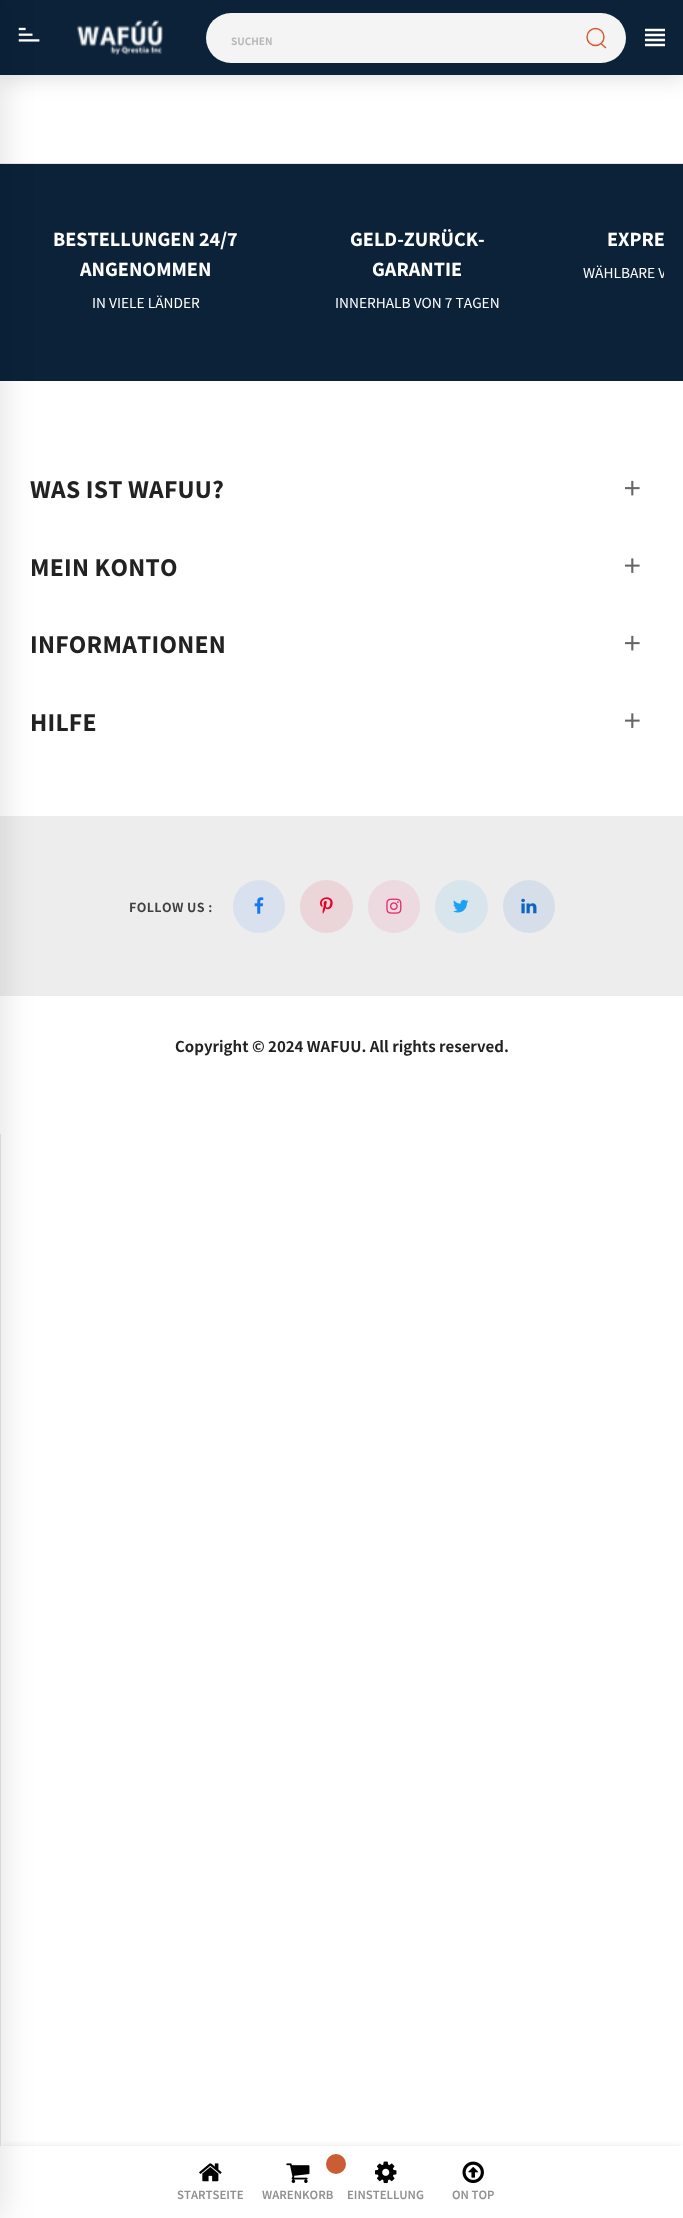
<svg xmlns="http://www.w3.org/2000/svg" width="683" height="2218">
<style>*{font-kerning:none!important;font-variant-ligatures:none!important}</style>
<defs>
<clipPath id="clip1"><rect x="20" y="189" width="644" height="167"/></clipPath>
</defs>
<rect width="100%" height="100%" fill="#fff"/>
<rect y="6" width="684" height="75" fill="#0000001a" filter="blur(9.5px)"/>
<rect width="683" height="75" fill="#0b2239"/>
<image x="18" y="27" width="22" height="15" href="media/1.png"/>
<rect y="163" width="683" height="1" fill="#e6e6e6"/>
<rect y="164" width="683" height="217" fill="#0b2239"/>
<rect y="816" width="683" height="180" fill="#ededed"/>
<rect y="1134" width="1" height="1012" fill="#e5e7eb"/>
<rect x="3" y="2146" width="678" height="68" fill="#0000001a" filter="blur(3px)"/>
<rect y="2146" width="683" height="72" fill="#fff"/>
<rect x="-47" width="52" height="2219" fill="#0000001a" filter="blur(15.5px)"/>
<image x="76" y="20" width="87" height="35" href="media/2.png"/>
<rect x="206" y="13" width="420" height="50" rx="25" fill="#f4f4f4"/>
<text x="231" y="45" style="font-family:Noto Sans JP;font-size:10px;font-weight:bold;fill:#b7b7b7">SUCHEN</text>
<circle cx="595.5" cy="37" r="8.5" fill="none" stroke="#cc5c33" stroke-width="1.4"/>
<circle cx="595.5" cy="37" r="7" fill="none" stroke="#cc5c3314" stroke-width="0.9"/>
<path d="M601 43.5l5 4.5" fill="none" stroke="#cc5c33" stroke-width="1.4"/>
<image x="645" y="28" width="20" height="19" href="media/3.png"/>
<text x="53" y="246" style="font-family:Noto Sans JP;font-size:17.75px;font-weight:800;fill:#fff">BESTELLUNGEN 24/7</text>
<text x="80" y="276" style="font-family:Noto Sans JP;font-size:17.75px;font-weight:800;fill:#fff">ANGENOMMEN</text>
<text x="92" y="308" style="font-family:Noto Sans JP;font-size:13.75px;fill:#fff">IN VIELE LÄNDER</text>
<text x="350" y="246" style="font-family:Noto Sans JP;font-size:17.75px;font-weight:800;fill:#fff">GELD-ZURÜCK-</text>
<text x="372" y="276" style="font-family:Noto Sans JP;font-size:17.75px;font-weight:800;fill:#fff">GARANTIE</text>
<text x="335" y="308" style="font-family:Noto Sans JP;font-size:13.75px;fill:#fff">INNERHALB VON 7 TAGEN</text>
<text x="607" y="246" style="font-family:Noto Sans JP;font-size:17.75px;font-weight:800;fill:#fff">EXPRE</text>
<g clip-path="url(#clip1)">
<text x="583" y="278" style="font-family:Noto Sans JP;font-size:13.75px;fill:#fff">WÄHLBARE V</text>
</g>
<text x="30" y="498" style="font-family:Noto Sans JP;font-size:22.5px;font-weight:800;letter-spacing:0.25px;fill:#222">WAS IST WAFUU?</text>
<image x="625" y="480" width="15" height="16" href="media/4.png"/>
<text x="30" y="576" style="font-family:Noto Sans JP;font-size:22.5px;font-weight:800;letter-spacing:0.25px;fill:#222">MEIN KONTO</text>
<image x="625" y="558" width="15" height="15" href="media/5.png"/>
<text x="30" y="653" style="font-family:Noto Sans JP;font-size:22.5px;font-weight:800;letter-spacing:0.25px;fill:#222">INFORMATIONEN</text>
<image x="625" y="635" width="15" height="16" href="media/4.png"/>
<text x="30" y="731" style="font-family:Noto Sans JP;font-size:22.5px;font-weight:800;letter-spacing:0.25px;fill:#222">HILFE</text>
<image x="625" y="713" width="15" height="15" href="media/5.png"/>
<text x="129" y="912" style="font-family:Noto Sans JP;font-size:12.5px;font-weight:bold;letter-spacing:0.4px;fill:#404040">FOLLOW US :</text>
<rect x="233" y="880" width="52" height="53" rx="26" fill="#d8e1ed"/>
<image x="254" y="897" width="10" height="17" href="media/6.png"/>
<circle cx="326.5" cy="906.5" r="26.5" fill="#ecd5d9"/>
<image x="320" y="897" width="13" height="17" href="media/7.png"/>
<rect x="368" y="880" width="52" height="53" rx="26" fill="#ecdae0"/>
<image x="386" y="898" width="16" height="16" href="media/8.png"/>
<circle cx="461.5" cy="906.5" r="26.5" fill="#d8e5ed"/>
<image x="453" y="899" width="16" height="14" href="media/9.png"/>
<rect x="503" y="880" width="52" height="53" rx="26" fill="#d6dfe9"/>
<image x="521" y="898" width="16" height="16" href="media/10.png"/>
<text x="175" y="1052" style="font-family:Noto Sans JP;font-size:15px;font-weight:bold;fill:#222">Copyright © 2024 WAFUU. All rights reserved.</text>
<image x="199" y="2163" width="23" height="19" href="media/11.png"/>
<text x="177" y="2199" style="font-family:Noto Sans JP;font-size:11.25px;font-weight:600;fill:#909090">STARTSEITE</text>
<image x="286" y="2163" width="24" height="20" href="media/12.png"/>
<circle cx="336" cy="2164" r="10" fill="#cc5c33"/>
<text x="262" y="2199" style="font-family:Noto Sans JP;font-size:11.25px;font-weight:600;fill:#909090">WARENKORB</text>
<image x="375" y="2161" width="22" height="23" href="media/13.png"/>
<text x="347" y="2199" style="font-family:Noto Sans JP;font-size:11.25px;font-weight:600;fill:#909090">EINSTELLUNG</text>
<image x="462" y="2161" width="22" height="22" href="media/14.png"/>
<text x="452" y="2199" style="font-family:Noto Sans JP;font-size:11.25px;font-weight:600;fill:#909090">ON TOP</text>
</svg>
